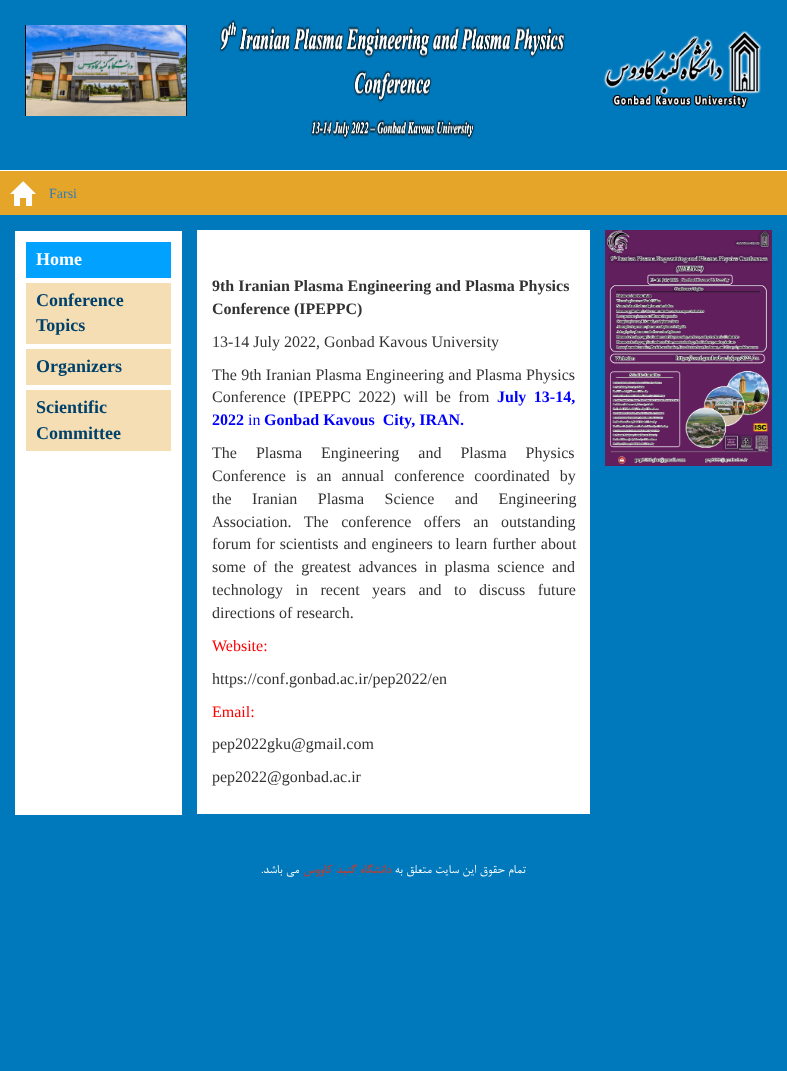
<svg xmlns="http://www.w3.org/2000/svg" width="787" height="1071">
<rect width="100%" height="100%" fill="#0079bc"/>
<image x="25" y="25" width="162" height="91" href="media/1.png"/>
<image x="219" y="19" width="347" height="121" href="media/2.png"/>
<image x="603" y="30" width="159" height="78" href="media/3.png"/>
<rect y="171" width="787" height="44" fill="#e4a529"/>
<rect y="170" width="787" height="1" fill="#fff"/>
<image x="10" y="181" width="26" height="25" href="media/4.png"/>
<text x="49" y="198" style="font-family:Liberation Serif;font-size:14px;fill:#337ab7">Farsi</text>
<rect x="15" y="231" width="167" height="584" fill="#fff"/>
<rect x="26" y="242" width="145" height="36" fill="#01a1ff"/>
<text x="36" y="265" style="font-family:Liberation Serif;font-size:18px;font-weight:bold;fill:#fff">Home</text>
<rect x="26" y="283" width="145" height="61" fill="#f5deb3"/>
<text x="36" y="306" style="font-family:Liberation Serif;font-size:18px;font-weight:bold;fill:#00416b">Conference</text>
<text x="36" y="331" style="font-family:Liberation Serif;font-size:18px;font-weight:bold;fill:#00416b">Topics</text>
<rect x="26" y="349" width="145" height="36" fill="#f5deb3"/>
<text x="36" y="372" style="font-family:Liberation Serif;font-size:18px;font-weight:bold;fill:#00416b">Organizers</text>
<rect x="26" y="390" width="145" height="61" fill="#f5deb3"/>
<text x="36" y="413" style="font-family:Liberation Serif;font-size:18px;font-weight:bold;fill:#00416b">Scientific</text>
<text x="36" y="439" style="font-family:Liberation Serif;font-size:18px;font-weight:bold;fill:#00416b">Committee</text>
<rect x="197" y="230" width="393" height="584" fill="#fff"/>
<text x="212" y="291" style="font-family:Liberation Serif;font-size:16px;font-weight:bold;fill:#333">9th Iranian Plasma Engineering and Plasma Physics</text>
<text x="212" y="314" style="font-family:Liberation Serif;font-size:16px;font-weight:bold;fill:#333">Conference (IPEPPC)</text>
<text x="212" y="347" style="font-family:Liberation Serif;font-size:16px;fill:#333">13-14 July 2022, Gonbad Kavous University</text>
<text x="212" y="380" word-spacing="0.25" style="font-family:Liberation Serif;font-size:16px;fill:#333">The 9th Iranian Plasma Engineering and Plasma Physics</text>
<text x="212" y="402" word-spacing="3.5" style="font-family:Liberation Serif;font-size:16px;fill:#333">Conference (IPEPPC 2022) will be from</text>
<text x="497" y="402" word-spacing="3.5" style="font-family:Liberation Serif;font-size:16px;font-weight:bold;fill:#00f">July 13-14,</text>
<text x="212" y="425" style="font-family:Liberation Serif;font-size:16px;font-weight:bold;fill:#00f">2022</text>
<text x="248" y="425" style="font-family:Liberation Serif;font-size:16px;fill:#00f">in</text>
<text x="264" y="425" style="font-family:Liberation Serif;font-size:16px;font-weight:bold;fill:#00f" xml:space="preserve">Gonbad Kavous  City, IRAN.</text>
<text x="212" y="458" word-spacing="15" style="font-family:Liberation Serif;font-size:16px;fill:#333">The Plasma Engineering and Plasma Physics</text>
<text x="212" y="481" word-spacing="6" style="font-family:Liberation Serif;font-size:16px;fill:#333">Conference is an annual conference coordinated by</text>
<text x="212" y="504" word-spacing="16.5" style="font-family:Liberation Serif;font-size:16px;fill:#333">the Iranian Plasma Science and Engineering</text>
<text x="212" y="527" word-spacing="8.5" style="font-family:Liberation Serif;font-size:16px;fill:#333">Association. The conference offers an outstanding</text>
<text x="212" y="549" word-spacing="1" style="font-family:Liberation Serif;font-size:16px;fill:#333">forum for scientists and engineers to learn further about</text>
<text x="212" y="572" word-spacing="3.5" style="font-family:Liberation Serif;font-size:16px;fill:#333">some of the greatest advances in plasma science and</text>
<text x="212" y="595" word-spacing="8.5" style="font-family:Liberation Serif;font-size:16px;fill:#333">technology in recent years and to discuss future</text>
<text x="212" y="618" style="font-family:Liberation Serif;font-size:16px;fill:#333">directions of research.</text>
<text x="212" y="651" style="font-family:Liberation Serif;font-size:16px;fill:#f00">Website:</text>
<text x="212" y="684" style="font-family:Liberation Serif;font-size:16px;fill:#333">https://conf.gonbad.ac.ir/pep2022/en</text>
<text x="212" y="717" style="font-family:Liberation Serif;font-size:16px;fill:#f00">Email:</text>
<text x="212" y="749" style="font-family:Liberation Serif;font-size:16px;fill:#333">pep2022gku@gmail.com</text>
<text x="212" y="782" style="font-family:Liberation Serif;font-size:16px;fill:#333">pep2022@gonbad.ac.ir</text>
<image x="605" y="230" width="167" height="236" href="media/5.png"/>
<text x="299" y="873" style="font-family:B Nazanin;font-size:14px;direction:rtl;fill:#fff">می باشد.</text>
<text x="391" y="873" style="font-family:B Nazanin;font-size:14px;font-weight:bold;direction:rtl;fill:#a94442">دانشگاه گنبد کاووس</text>
<text x="526" y="873" style="font-family:B Nazanin;font-size:14px;direction:rtl;fill:#fff">تمام حقوق این سایت متعلق به</text>
</svg>
